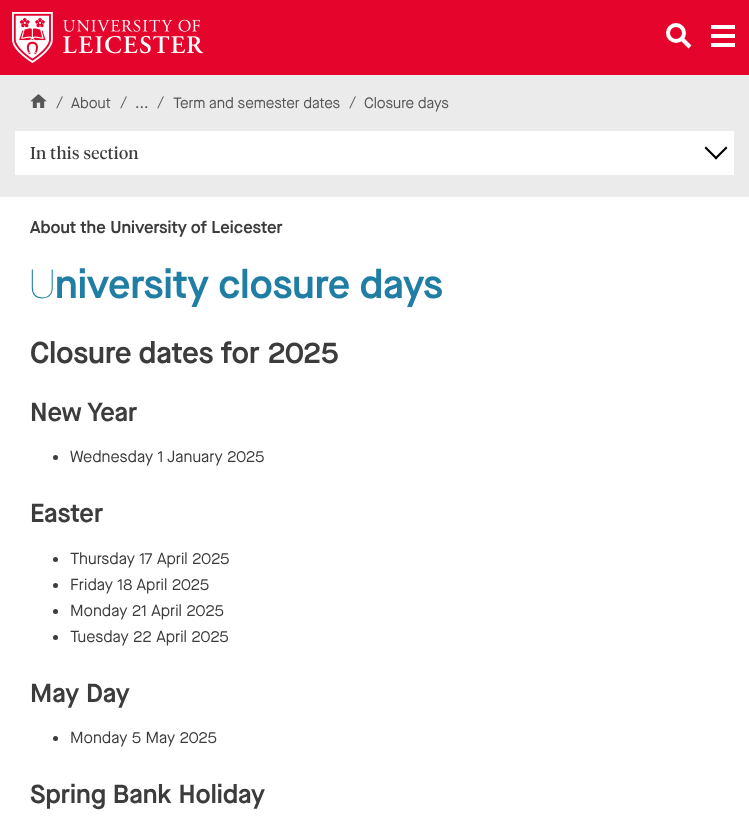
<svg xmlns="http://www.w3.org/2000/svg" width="749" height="833">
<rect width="100%" height="100%" fill="#fff"/>
<rect width="749" height="75" fill="#e4042c"/>
<image x="12" y="12" width="192" height="51" href="media/1.png"/>
<path d="M682 39l8 8" fill="none" stroke="#fff" stroke-width="4"/>
<circle cx="676" cy="33" r="8" fill="none" stroke="#fff" stroke-width="4"/>
<rect x="711" y="25" width="24" height="4" fill="#fff"/>
<rect x="711" y="34" width="24" height="4" fill="#fff"/>
<rect x="711" y="43" width="24" height="4" fill="#fff"/>
<rect y="75" width="749" height="122" fill="#ebebeb"/>
<image x="30" y="94" width="17" height="14" href="media/2.png"/>
<text x="56" y="108" style="font-family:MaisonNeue;font-size:16px;fill:#565656">/</text>
<text x="71" y="108" style="font-family:MaisonNeue;font-size:15px;fill:#565656">About</text>
<text x="120" y="108" style="font-family:MaisonNeue;font-size:16px;fill:#565656">/</text>
<text x="135" y="108" style="font-family:MaisonNeue;font-size:15px;fill:#565656">...</text>
<text x="157" y="108" style="font-family:MaisonNeue;font-size:16px;fill:#565656">/</text>
<text x="173" y="108" style="font-family:MaisonNeue;font-size:15px;fill:#565656">Term and semester dates</text>
<text x="349" y="108" style="font-family:MaisonNeue;font-size:16px;fill:#565656">/</text>
<text x="364" y="108" style="font-family:MaisonNeue;font-size:15px;fill:#565656">Closure days</text>
<rect x="15" y="131" width="719" height="44" fill="#fff"/>
<text x="30" y="159" style="font-family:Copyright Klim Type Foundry;font-size:17px;letter-spacing:0.3px;fill:#3c3c3c">In this section</text>
<path d="M717.5 158l-1.5 1.5l-11.5-11.5l1.5-1.5z" fill="#000"/>
<path d="M716 159.5l-1.5-1.5l11.5-11.5l1.5 1.5z" fill="#000"/>
<text x="30" y="233" style="font-family:MaisonNeue;font-size:17px;font-weight:600;fill:#3c3c3c">About the University of Leicester</text>
<text x="28" y="298" style="font-family:Noto Sans;font-size:40px;font-weight:100;fill:#207ea4">U</text>
<text x="55" y="298" style="font-family:MaisonNeue;font-size:40px;font-weight:600;fill:#207ea4">niversity closure days</text>
<text x="30" y="363" style="font-family:MaisonNeue;font-size:30px;font-weight:600;fill:#3c3c3c">Closure dates for 2025</text>
<text x="30" y="421" style="font-family:MaisonNeue;font-size:26px;font-weight:600;fill:#3c3c3c">New Year</text>
<circle cx="55.5" cy="457.5" r="2.5" fill="#3c3c3c"/>
<text x="70" y="462" style="font-family:MaisonNeue;font-size:16px;fill:#3c3c3c">Wednesday 1 January 2025</text>
<text x="30" y="522" style="font-family:MaisonNeue;font-size:26px;font-weight:600;fill:#3c3c3c">Easter</text>
<circle cx="55.5" cy="559.5" r="2.5" fill="#3c3c3c"/>
<text x="70" y="564" style="font-family:MaisonNeue;font-size:16px;fill:#3c3c3c">Thursday 17 April 2025</text>
<circle cx="55.5" cy="585.5" r="2.5" fill="#3c3c3c"/>
<text x="70" y="590" style="font-family:MaisonNeue;font-size:16px;fill:#3c3c3c">Friday 18 April 2025</text>
<circle cx="55.5" cy="611.5" r="2.5" fill="#3c3c3c"/>
<text x="70" y="616" style="font-family:MaisonNeue;font-size:16px;fill:#3c3c3c">Monday 21 April 2025</text>
<circle cx="55.5" cy="637.5" r="2.5" fill="#3c3c3c"/>
<text x="70" y="642" style="font-family:MaisonNeue;font-size:16px;fill:#3c3c3c">Tuesday 22 April 2025</text>
<text x="30" y="702" style="font-family:MaisonNeue;font-size:26px;font-weight:600;fill:#3c3c3c">May Day</text>
<circle cx="55.5" cy="738.5" r="2.5" fill="#3c3c3c"/>
<text x="70" y="743" style="font-family:MaisonNeue;font-size:16px;fill:#3c3c3c">Monday 5 May 2025</text>
<text x="30" y="803" style="font-family:MaisonNeue;font-size:26px;font-weight:600;fill:#3c3c3c">Spring Bank Holiday</text>
</svg>
